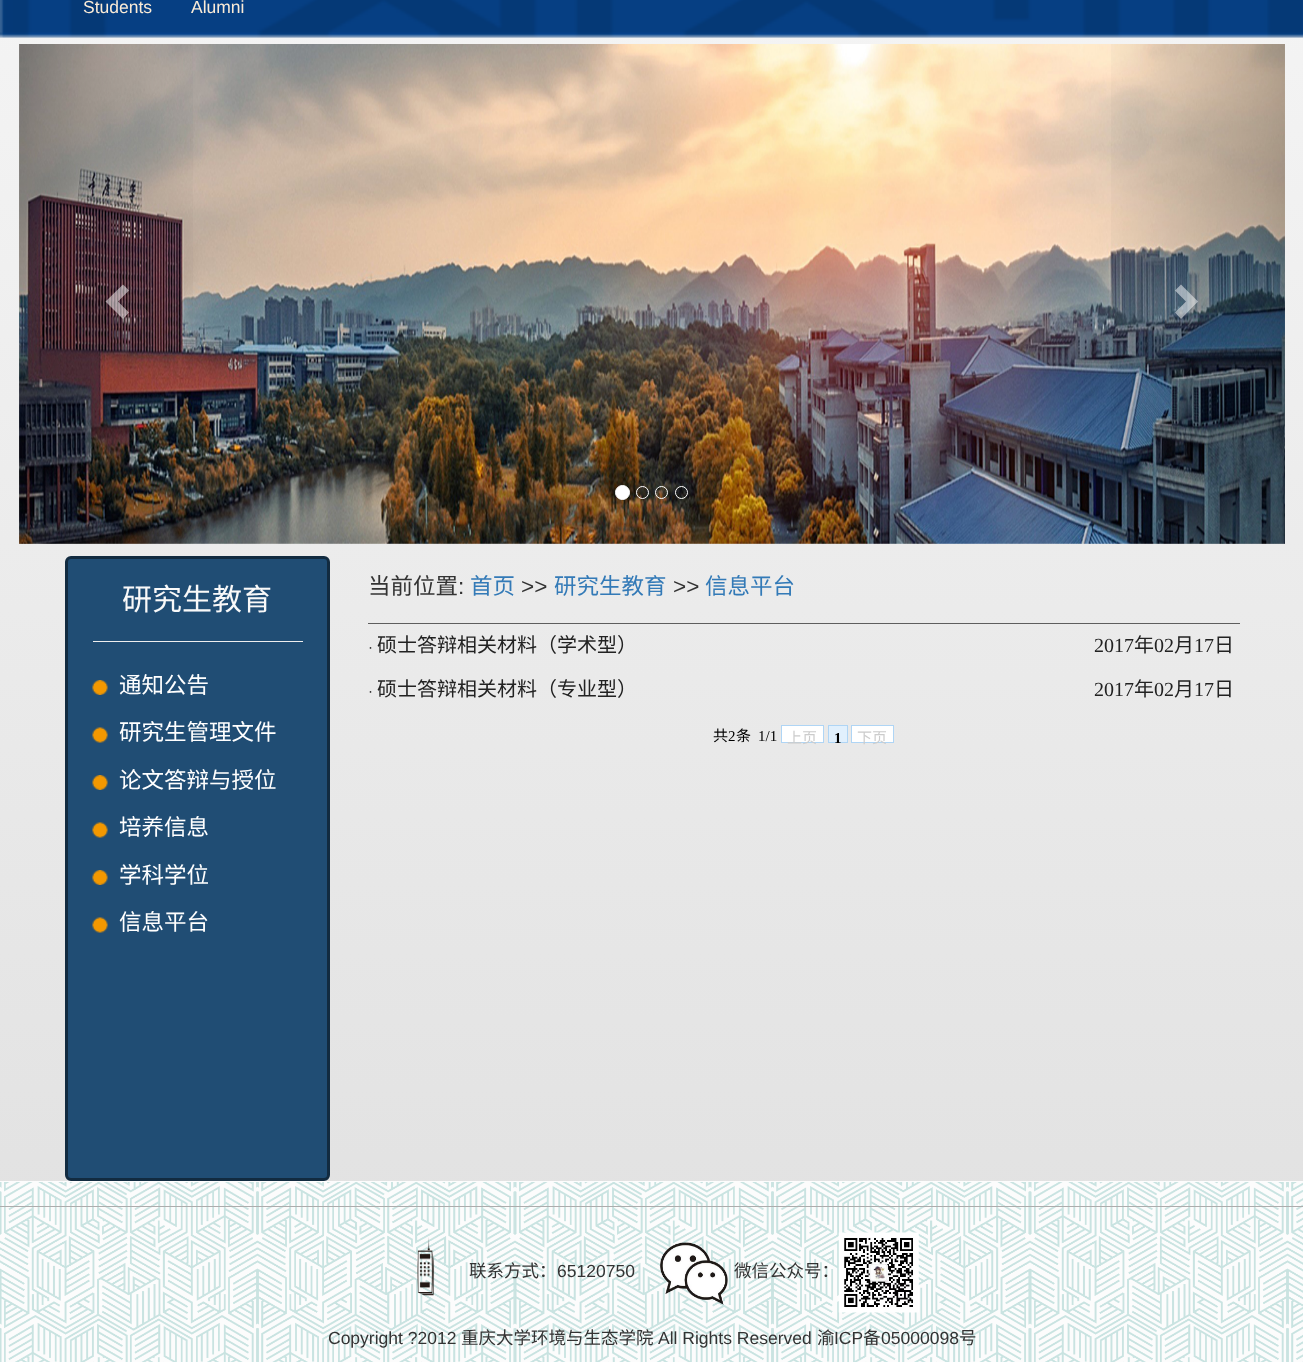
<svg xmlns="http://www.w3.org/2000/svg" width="1303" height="1362">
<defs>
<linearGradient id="g1" gradientUnits="userSpaceOnUse" x1="652" y1="-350" x2="652" y2="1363"><stop offset="0" stop-color="#f9f9f9"/><stop offset="1" stop-color="#e0e0e0"/></linearGradient>
<linearGradient id="g2" gradientUnits="userSpaceOnUse" x1="19" y1="294" x2="209" y2="294"><stop offset="0" stop-color="#000" stop-opacity="0.25"/><stop offset="1" stop-color="#000" stop-opacity="0"/></linearGradient>
<linearGradient id="g3" gradientUnits="userSpaceOnUse" x1="1095" y1="294" x2="1285" y2="294"><stop offset="0" stop-color="#000" stop-opacity="0"/><stop offset="1" stop-color="#000" stop-opacity="0.25"/></linearGradient>
</defs>
<rect width="100%" height="100%" fill="#fff"/>
<rect width="1303" height="1181" fill="url(#g1)"/>
<image x="0" y="0" width="1303" height="38" href="media/1.png"/>
<text x="83" y="13" style="font-family:Liberation Sans;font-size:17.5px;fill:#faebd7">Students</text>
<text x="191" y="13" style="font-family:Liberation Sans;font-size:17.5px;fill:#faebd7">Alumni</text>
<image x="19" y="44" width="1266" height="500" href="media/2.png"/>
<rect x="19" y="44" width="174" height="500" fill="url(#g2)"/>
<path d="M129 290.5l-11 11l11 11l-6 6.5l-17.5-17.5l17.5-17z" fill="#ffffff80"/>
<circle cx="622.5" cy="492.5" r="7" fill="#fff" stroke="#fff"/>
<circle cx="642.5" cy="492.5" r="6" fill="none" stroke="#fff"/>
<circle cx="661.5" cy="492.5" r="6" fill="none" stroke="#fff"/>
<circle cx="681.5" cy="492.5" r="6" fill="none" stroke="#fff"/>
<rect x="1111" y="44" width="174" height="500" fill="url(#g3)"/>
<path d="M1198 301.5l-17 17.5l-6-6.5l11-11l-11-11l6-6z" fill="#ffffff80"/>
<rect x="66.5" y="557.5" width="262" height="622" rx="4.5" fill="#204d74" stroke="#122b40" stroke-width="3"/>
<text x="122" y="610" style="font-family:Noto Sans CJK SC;font-size:30px;fill:#f9f9f9">研究生教育</text>
<rect x="93" y="641" width="210" height="1" fill="#eee"/>
<image x="92" y="680" width="16" height="15" href="media/3.png"/>
<text x="119" y="693" style="font-family:Noto Sans CJK SC;font-size:22.5px;fill:#fff">通知公告</text>
<image x="92" y="727" width="16" height="16" href="media/4.png"/>
<text x="119" y="740" style="font-family:Noto Sans CJK SC;font-size:22.5px;fill:#fff">研究生管理文件</text>
<image x="92" y="775" width="16" height="15" href="media/3.png"/>
<text x="119" y="788" style="font-family:Noto Sans CJK SC;font-size:22.5px;fill:#fff">论文答辩与授位</text>
<image x="92" y="822" width="16" height="16" href="media/5.png"/>
<text x="119" y="835" style="font-family:Noto Sans CJK SC;font-size:22.5px;fill:#fff">培养信息</text>
<image x="92" y="870" width="16" height="15" href="media/3.png"/>
<text x="119" y="883" style="font-family:Noto Sans CJK SC;font-size:22.5px;fill:#fff">学科学位</text>
<image x="92" y="917" width="16" height="16" href="media/4.png"/>
<text x="119" y="930" style="font-family:Noto Sans CJK SC;font-size:22.5px;fill:#fff">信息平台</text>
<rect x="368" y="623" width="872" height="1" fill="#5e5e5e"/>
<text x="368" y="594" style="font-family:Noto Sans CJK SC;font-size:22.5px;fill:#333">当前位置</text>
<text x="458" y="594" style="font-family:Liberation Sans;font-size:22.5px;fill:#333">:</text>
<text x="470" y="594" style="font-family:Noto Sans CJK SC;font-size:22.5px;fill:#337ab7">首页</text>
<text x="521" y="594" style="font-family:Liberation Sans;font-size:22.5px;fill:#333">&gt;&gt;</text>
<text x="554" y="594" style="font-family:Noto Sans CJK SC;font-size:22.5px;fill:#337ab7">研究生教育</text>
<text x="673" y="594" style="font-family:Liberation Sans;font-size:22.5px;fill:#333">&gt;&gt;</text>
<text x="705" y="594" style="font-family:Noto Sans CJK SC;font-size:22.5px;fill:#337ab7">信息平台</text>
<text x="368" y="652" style="font-family:Liberation Sans;font-size:15px;fill:#222">·</text>
<text x="377" y="652" style="font-family:Noto Sans CJK SC;font-size:20px;fill:#222">硕士答辩相关材料（学术型）</text>
<text x="1094" y="652" style="font-family:Liberation Serif;font-size:20px;fill:#222">2017</text>
<text x="1134" y="652" style="font-family:Noto Sans CJK SC;font-size:20px;fill:#222">年</text>
<text x="1154" y="652" style="font-family:Liberation Serif;font-size:20px;fill:#222">02</text>
<text x="1174" y="652" style="font-family:Noto Sans CJK SC;font-size:20px;fill:#222">月</text>
<text x="1194" y="652" style="font-family:Liberation Serif;font-size:20px;fill:#222">17</text>
<text x="1214" y="652" style="font-family:Noto Sans CJK SC;font-size:20px;fill:#222">日</text>
<text x="368" y="696" style="font-family:Liberation Sans;font-size:15px;fill:#222">·</text>
<text x="377" y="696" style="font-family:Noto Sans CJK SC;font-size:20px;fill:#222">硕士答辩相关材料（专业型）</text>
<text x="1094" y="696" style="font-family:Liberation Serif;font-size:20px;fill:#222">2017</text>
<text x="1134" y="696" style="font-family:Noto Sans CJK SC;font-size:20px;fill:#222">年</text>
<text x="1154" y="696" style="font-family:Liberation Serif;font-size:20px;fill:#222">02</text>
<text x="1174" y="696" style="font-family:Noto Sans CJK SC;font-size:20px;fill:#222">月</text>
<text x="1194" y="696" style="font-family:Liberation Serif;font-size:20px;fill:#222">17</text>
<text x="1214" y="696" style="font-family:Noto Sans CJK SC;font-size:20px;fill:#222">日</text>
<text x="713" y="741" style="font-family:Noto Sans CJK SC;font-size:15px;fill:#000">共</text>
<text x="728" y="741" style="font-family:Liberation Serif;font-size:15px;fill:#000">2</text>
<text x="736" y="741" style="font-family:Noto Sans CJK SC;font-size:15px;fill:#000">条</text>
<text x="758" y="741" style="font-family:Liberation Serif;font-size:15px;fill:#000">1/1</text>
<rect x="781.5" y="725.5" width="42" height="17" fill="#fff" stroke="#afd5f5"/>
<text x="787" y="743" style="font-family:Noto Sans CJK SC;font-size:15px;fill:#ccc">上页</text>
<rect x="828.5" y="725.5" width="19" height="17" fill="#e1f0fd" stroke="#afd5f5"/>
<text x="834" y="743" style="font-family:Liberation Serif;font-size:15px;font-weight:bold;fill:#000">1</text>
<rect x="851.5" y="725.5" width="42" height="17" fill="#fff" stroke="#afd5f5"/>
<text x="857" y="743" style="font-family:Noto Sans CJK SC;font-size:15px;fill:#ccc">下页</text>
<rect y="1181" width="1303" height="181" fill="#fcfcfc"/>
<image x="0" y="1182" width="1303" height="180" href="media/6.png"/>
<rect y="1206" width="1303" height="1" fill="#adadad"/>
<image x="417" y="1237" width="18" height="59" href="media/7.png"/>
<text x="469" y="1277" style="font-family:Noto Sans CJK SC;font-size:17.5px;fill:#333">联系方式：</text>
<text x="557" y="1277" style="font-family:Liberation Sans;font-size:17.5px;fill:#333">65120750</text>
<image x="660" y="1242" width="68" height="63" href="media/8.png"/>
<text x="734" y="1277" style="font-family:Noto Sans CJK SC;font-size:17.5px;fill:#333">微信公众号：</text>
<image x="838" y="1232" width="81" height="81" href="media/9.png"/>
<text x="328" y="1344" style="font-family:Liberation Sans;font-size:17.5px;fill:#333">Copyright ?2012</text>
<text x="461" y="1344" style="font-family:Noto Sans CJK SC;font-size:17.5px;fill:#333">重庆大学环境与生态学院</text>
<text x="658" y="1344" style="font-family:Liberation Sans;font-size:17.5px;fill:#333">All Rights Reserved</text>
<text x="817" y="1344" style="font-family:Noto Sans CJK SC;font-size:17.5px;fill:#333">渝</text>
<text x="834" y="1344" style="font-family:Liberation Sans;font-size:17.5px;fill:#333">ICP</text>
<text x="863" y="1344" style="font-family:Noto Sans CJK SC;font-size:17.5px;fill:#333">备</text>
<text x="881" y="1344" style="font-family:Liberation Sans;font-size:17.5px;fill:#333">05000098</text>
<text x="959" y="1344" style="font-family:Noto Sans CJK SC;font-size:17.5px;fill:#333">号</text>
</svg>
